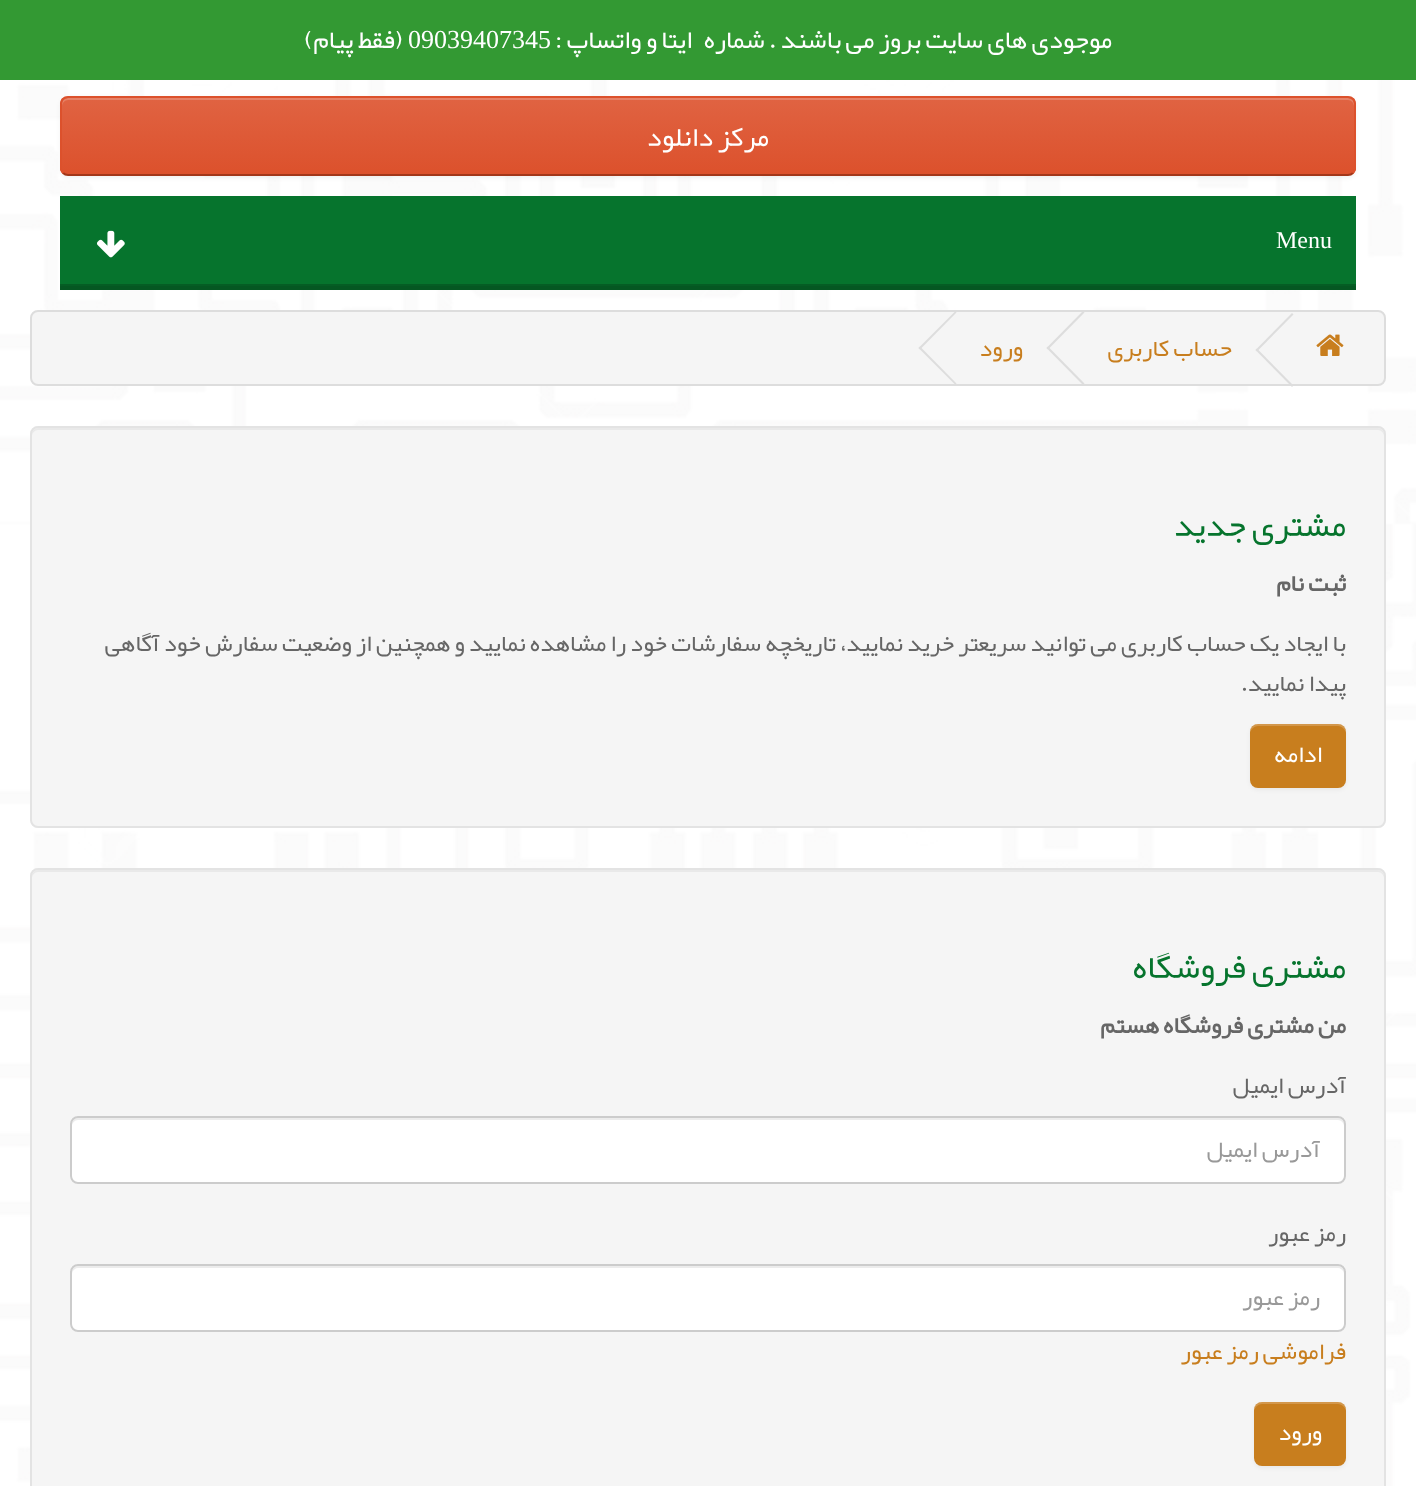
<svg xmlns="http://www.w3.org/2000/svg" width="1416" height="1486">
<defs>
<clipPath id="clip1"><rect x="60" y="96" width="1296" height="80" rx="8"/></clipPath>
<linearGradient id="g1" gradientUnits="userSpaceOnUse" x1="708" y1="98" x2="708" y2="174"><stop offset="0" stop-color="#e06342"/><stop offset="1" stop-color="#dc512c"/></linearGradient>
</defs>
<rect width="100%" height="100%" fill="#fff"/>
<image x="0" y="80" width="1416" height="1406" href="media/1.png"/>
<rect width="1416" height="80" fill="#393"/>
<text x="1112" y="48" word-spacing="-0.25" style="font-family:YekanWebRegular;font-size:26px;direction:rtl;fill:#fff">موجودی های سایت بروز می باشند . شماره</text>
<text x="692" y="48" style="font-family:YekanWebRegular;font-size:26px;direction:rtl;fill:#fff">ایتا</text>
<text x="657" y="48" style="font-family:YekanWebRegular;font-size:26px;direction:rtl;fill:#fff">و واتساپ :</text>
<text x="408" y="48" style="font-family:Liberation Serif;font-size:26px;fill:#fff">09039407345</text>
<text x="403" y="48" style="font-family:YekanWebRegular;font-size:26px;direction:rtl;fill:#fff">(فقط پیام)</text>
<rect x="60" y="98" width="1296" height="80" rx="8" fill="#0000000d" filter="blur(2px)"/>
<g clip-path="url(#clip1)">
<rect x="60" y="98" width="1296" height="76" fill="url(#g1)"/>
</g>
<path d="M68 100h1280c3 0 6 3 6 6v-2c0-3-3-6-6-6h-1280c-3 0-6 3-6 6v2c0-3 3-6 6-6z" fill="#e68268"/>
<path d="M1353 173c-1.5 1.5-3 2-5 2h-1280c-2 0-3.5-.5-5-2" fill="none" stroke="#a2371a" stroke-width="2"/>
<path d="M63 173l-2-3.5v-66l1-3.5c1.5-2 3.5-3 6-3h1280c2.5 0 4.5 1 6 3l1 3.5v66l-2 3.5" fill="none" stroke="#dc512c" stroke-width="2"/>
<text x="769" y="146" style="font-family:YekanWebRegular;font-size:28px;direction:rtl;fill:#fff">مرکز دانلود</text>
<rect x="60" y="196" width="1296" height="88" fill="#06742d"/>
<rect x="60" y="284" width="1296" height="2" fill="#055d24"/>
<text x="1276" y="248" style="font-family:Liberation Serif;font-size:24px;fill:#fff">Menu</text>
<image x="97" y="230" width="28" height="28" href="media/2.png"/>
<rect x="60" y="286" width="1296" height="4" fill="#055722"/>
<rect x="31" y="311" width="1354" height="74" rx="7" fill="#f5f5f5" stroke="#ddd" stroke-width="2"/>
<image x="1316" y="334" width="28" height="22" href="media/3.png"/>
<path d="M1257 348.5l36.5 37l-1.5 1.5l-36.5-37z" fill="#ddd"/>
<path d="M1292 313l1.5 1.5l-36.5 37l-1.5-1.5z" fill="#ddd"/>
<text x="1232" y="356" style="font-family:YekanWebRegular;font-size:24px;direction:rtl;fill:#c87e1e">حساب کاربری</text>
<path d="M1048 346.5l36.5 37l-1.5 1.5l-36.5-37z" fill="#ddd"/>
<path d="M1083 311l1.5 1.5l-36.5 37l-1.5-1.5z" fill="#ddd"/>
<text x="1023" y="356" style="font-family:YekanWebRegular;font-size:24px;direction:rtl;fill:#c87e1e">ورود</text>
<path d="M920 346.5l36.5 37l-1 1.5l-37-37z" fill="#ddd"/>
<path d="M955.5 311l1 1.5l-36.5 37l-1.5-1.5z" fill="#ddd"/>
<rect x="30" y="426" width="1356" height="402" rx="8" fill="#f5f5f5"/>
<path d="M38 430h1340c3 0 6 3 6 6v-2c0-3-3-6-6-6h-1340c-3 0-6 3-6 6v2c0-3 3-6 6-6z" fill="#e9e9e9"/>
<rect x="31" y="427" width="1354" height="400" rx="7" fill="none" stroke="#e3e3e3" stroke-width="2"/>
<text x="1346" y="536" style="font-family:YekanWebRegular;font-size:34px;direction:rtl;fill:#06742d">مشتری جدید</text>
<text x="1346" y="591" style="font-family:YekanWebRegular;font-size:24px;font-weight:bold;direction:rtl;fill:#666">ثبت نام</text>
<text x="1346" y="651" style="font-family:YekanWebRegular;font-size:24px;direction:rtl;fill:#666">با ايجاد يک حساب کاربری می توانید سريعتر خريد نمایيد، تاريخچه سفارشات خود را مشاهده نمایید و همچنين از وضعيت سفارش خود آگاهی</text>
<text x="1346" y="691" style="font-family:YekanWebRegular;font-size:24px;direction:rtl;fill:#666">پيدا نمایيد.</text>
<rect x="1250" y="726" width="96" height="64" rx="8" fill="#0000000d" filter="blur(2px)"/>
<rect x="1250" y="724" width="96" height="64" rx="8" fill="#c87e1e"/>
<path d="M1258 726h80c4 0 8 4 8 8c0-13-11-10-21-10h-54c-10 0-21-3-21 10c0-4 4-8 8-8z" fill="#ffffff33"/>
<text x="1322" y="762" style="font-family:YekanWebRegular;font-size:24px;direction:rtl;fill:#fff">ادامه</text>
<rect x="30" y="868" width="1356" height="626" rx="8" fill="#f5f5f5"/>
<path d="M38 872h1340c3 0 6 3 6 6v-2c0-3-3-6-6-6h-1340c-3 0-6 3-6 6v2c0-3 3-6 6-6z" fill="#e9e9e9"/>
<rect x="31" y="869" width="1354" height="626" rx="7" fill="none" stroke="#e3e3e3" stroke-width="2"/>
<text x="1346" y="978" style="font-family:YekanWebRegular;font-size:34px;direction:rtl;fill:#06742d">مشتری فروشگاه</text>
<text x="1346" y="1033" style="font-family:YekanWebRegular;font-size:24px;font-weight:bold;direction:rtl;fill:#666">من مشتری فروشگاه هستم</text>
<text x="1346" y="1093" style="font-family:YekanWebRegular;font-size:24px;direction:rtl;fill:#666">آدرس ایمیل</text>
<rect x="70" y="1116" width="1276" height="68" rx="8" fill="#fff"/>
<path d="M78 1120h1260c3 0 6 3 6 6v-2c0-3-3-6-6-6h-1260c-3 0-6 3-6 6v2c0-3 3-6 6-6z" fill="#ececec"/>
<rect x="71" y="1117" width="1274" height="66" rx="7" fill="none" stroke="#ccc" stroke-width="2"/>
<text x="1320" y="1157" style="font-family:YekanWebRegular;font-size:24px;direction:rtl;fill:#999">آدرس ایمیل</text>
<text x="1346" y="1241" style="font-family:YekanWebRegular;font-size:24px;direction:rtl;fill:#666">رمز عبور</text>
<rect x="70" y="1264" width="1276" height="68" rx="8" fill="#fff"/>
<path d="M78 1268h1260c3 0 6 3 6 6v-2c0-3-3-6-6-6h-1260c-3 0-6 3-6 6v2c0-3 3-6 6-6z" fill="#ececec"/>
<rect x="71" y="1265" width="1274" height="66" rx="7" fill="none" stroke="#ccc" stroke-width="2"/>
<text x="1320" y="1305" style="font-family:YekanWebRegular;font-size:24px;direction:rtl;fill:#999">رمز عبور</text>
<text x="1346" y="1359" style="font-family:YekanWebRegular;font-size:24px;direction:rtl;fill:#c87e1e">فراموشی رمز عبور</text>
<rect x="1254" y="1404" width="92" height="64" rx="8" fill="#0000000d" filter="blur(2px)"/>
<rect x="1254" y="1402" width="92" height="64" rx="8" fill="#c87e1e"/>
<path d="M1262 1404h76c4 0 8 4 8 8c0-13-11-10-21-10h-50c-10 0-21-3-21 10c0-4 4-8 8-8z" fill="#ffffff33"/>
<text x="1322" y="1440" style="font-family:YekanWebRegular;font-size:24px;direction:rtl;fill:#fff">ورود</text>
</svg>
